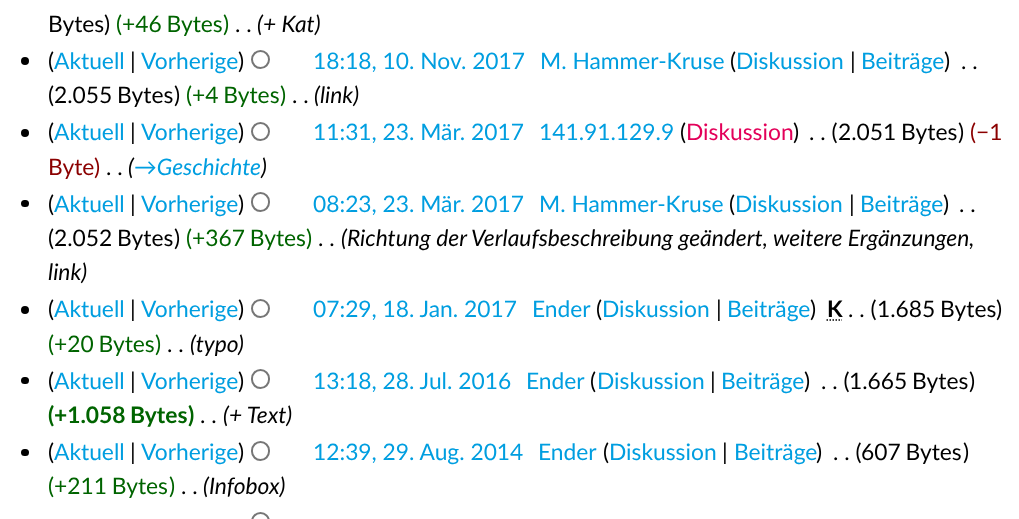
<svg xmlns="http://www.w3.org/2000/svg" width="1019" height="519">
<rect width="100%" height="100%" fill="#fff"/>
<text x="48" y="32" style="font-family:Lato;font-size:22.8px;fill:#000">Bytes</text>
<text x="104" y="32" style="font-family:Lato;font-size:22.8px;fill:#000">)</text>
<text x="116" y="32" style="font-family:Lato;font-size:22.8px;fill:#006400">(</text>
<text x="122" y="32" word-spacing="-1" style="font-family:Lato;font-size:22.8px;fill:#006400">+46 Bytes</text>
<text x="223" y="32" style="font-family:Lato;font-size:22.8px;fill:#006400">)</text>
<text x="235" y="32" style="font-family:Lato;font-size:22.8px;fill:#000">. .</text>
<text x="257" y="32" style="font-family:Lato;font-size:22.8px;font-style:italic;fill:#000">(+ Kat)</text>
<circle cx="25" cy="61" r="4" fill="#000"/>
<text x="48" y="69" style="font-family:Lato;font-size:22.8px;fill:#000">(</text>
<text x="54" y="69" style="font-family:Lato;font-size:22.8px;fill:#009ee0">Aktuell</text>
<text x="130" y="69" style="font-family:Lato;font-size:22.8px;fill:#000">|</text>
<text x="141" y="69" style="font-family:Lato;font-size:22.8px;fill:#009ee0">Vorherige</text>
<text x="238" y="69" style="font-family:Lato;font-size:22.8px;fill:#000">)</text>
<circle cx="260.5" cy="59.5" r="8.5" fill="none" stroke="#767676" stroke-width="2"/>
<text x="313" y="69" style="font-family:Lato;font-size:22.8px;fill:#009ee0">18:18, 10. Nov. 2017</text>
<text x="540" y="69" style="font-family:Lato;font-size:22.8px;fill:#009ee0">M. Hammer-Kruse</text>
<text x="730" y="69" style="font-family:Lato;font-size:22.8px;fill:#000">(</text>
<text x="736" y="69" style="font-family:Lato;font-size:22.8px;fill:#009ee0">Diskussion</text>
<text x="850" y="69" style="font-family:Lato;font-size:22.8px;fill:#000">|</text>
<text x="861" y="69" style="font-family:Lato;font-size:22.8px;fill:#009ee0">Beiträge</text>
<text x="944" y="69" style="font-family:Lato;font-size:22.8px;fill:#000">)</text>
<text x="961" y="69" style="font-family:Lato;font-size:22.8px;fill:#000">. .</text>
<text x="48" y="103" style="font-family:Lato;font-size:22.8px;fill:#000">(</text>
<text x="54" y="103" word-spacing="-1" style="font-family:Lato;font-size:22.8px;fill:#000">2.055 Bytes</text>
<text x="174" y="103" style="font-family:Lato;font-size:22.8px;fill:#000">)</text>
<text x="186" y="103" style="font-family:Lato;font-size:22.8px;fill:#006400">(</text>
<text x="192" y="103" word-spacing="-1" style="font-family:Lato;font-size:22.8px;fill:#006400">+4 Bytes</text>
<text x="280" y="103" style="font-family:Lato;font-size:22.8px;fill:#006400">)</text>
<text x="292" y="103" style="font-family:Lato;font-size:22.8px;fill:#000">. .</text>
<text x="314" y="103" style="font-family:Lato;font-size:22.8px;font-style:italic;fill:#000">(link)</text>
<circle cx="25" cy="133" r="4" fill="#000"/>
<text x="48" y="140" style="font-family:Lato;font-size:22.8px;fill:#000">(</text>
<text x="54" y="140" style="font-family:Lato;font-size:22.8px;fill:#009ee0">Aktuell</text>
<text x="130" y="140" style="font-family:Lato;font-size:22.8px;fill:#000">|</text>
<text x="141" y="140" style="font-family:Lato;font-size:22.8px;fill:#009ee0">Vorherige</text>
<text x="238" y="140" style="font-family:Lato;font-size:22.8px;fill:#000">)</text>
<circle cx="260.5" cy="131.5" r="8.5" fill="none" stroke="#767676" stroke-width="2"/>
<text x="313" y="140" style="font-family:Lato;font-size:22.8px;fill:#009ee0">11:31, 23. Mär. 2017</text>
<text x="539" y="140" style="font-family:Lato;font-size:22.8px;fill:#009ee0">141.91.129.9</text>
<text x="680" y="140" style="font-family:Lato;font-size:22.8px;fill:#000">(</text>
<text x="686" y="140" style="font-family:Lato;font-size:22.8px;fill:#e30059">Diskussion</text>
<text x="793" y="140" style="font-family:Lato;font-size:22.8px;fill:#000">)</text>
<text x="809" y="140" style="font-family:Lato;font-size:22.8px;fill:#000">. . (</text>
<text x="838" y="140" word-spacing="-1" style="font-family:Lato;font-size:22.8px;fill:#000">2.051 Bytes</text>
<text x="958" y="140" style="font-family:Lato;font-size:22.8px;fill:#000">)</text>
<text x="970" y="140" style="font-family:Lato;font-size:22.8px;fill:#8b0000">(−1</text>
<text x="48" y="175" style="font-family:Lato;font-size:22.8px;fill:#8b0000">Byte</text>
<text x="94" y="175" style="font-family:Lato;font-size:22.8px;fill:#8b0000">)</text>
<text x="106" y="175" style="font-family:Lato;font-size:22.8px;fill:#000">. .</text>
<text x="128" y="175" style="font-family:Lato;font-size:22.8px;font-style:italic;fill:#000">(</text>
<text x="134" y="175" style="font-family:Lato;font-size:22.8px;font-style:italic;fill:#009ee0">→Geschichte</text>
<text x="261" y="175" style="font-family:Lato;font-size:22.8px;font-style:italic;fill:#000">)</text>
<rect x="21" y="200" width="8" height="7" rx="3.5" fill="#000"/>
<text x="48" y="212" style="font-family:Lato;font-size:22.8px;fill:#000">(</text>
<text x="54" y="212" style="font-family:Lato;font-size:22.8px;fill:#009ee0">Aktuell</text>
<text x="130" y="212" style="font-family:Lato;font-size:22.8px;fill:#000">|</text>
<text x="141" y="212" style="font-family:Lato;font-size:22.8px;fill:#009ee0">Vorherige</text>
<text x="238" y="212" style="font-family:Lato;font-size:22.8px;fill:#000">)</text>
<rect x="252" y="193" width="17" height="18" rx="8.5" fill="none" stroke="#767676" stroke-width="2"/>
<text x="313" y="212" style="font-family:Lato;font-size:22.8px;fill:#009ee0">08:23, 23. Mär. 2017</text>
<text x="539" y="212" style="font-family:Lato;font-size:22.8px;fill:#009ee0">M. Hammer-Kruse</text>
<text x="729" y="212" style="font-family:Lato;font-size:22.8px;fill:#000">(</text>
<text x="735" y="212" style="font-family:Lato;font-size:22.8px;fill:#009ee0">Diskussion</text>
<text x="849" y="212" style="font-family:Lato;font-size:22.8px;fill:#000">|</text>
<text x="860" y="212" style="font-family:Lato;font-size:22.8px;fill:#009ee0">Beiträge</text>
<text x="943" y="212" style="font-family:Lato;font-size:22.8px;fill:#000">)</text>
<text x="959" y="212" style="font-family:Lato;font-size:22.8px;fill:#000">. .</text>
<text x="48" y="246" style="font-family:Lato;font-size:22.8px;fill:#000">(</text>
<text x="54" y="246" word-spacing="-1" style="font-family:Lato;font-size:22.8px;fill:#000">2.052 Bytes</text>
<text x="174" y="246" style="font-family:Lato;font-size:22.8px;fill:#000">)</text>
<text x="186" y="246" style="font-family:Lato;font-size:22.8px;fill:#006400">(</text>
<text x="192" y="246" word-spacing="-1" style="font-family:Lato;font-size:22.8px;fill:#006400">+367 Bytes</text>
<text x="306" y="246" style="font-family:Lato;font-size:22.8px;fill:#006400">)</text>
<text x="318" y="246" style="font-family:Lato;font-size:22.8px;fill:#000">. .</text>
<text x="341" y="246" style="font-family:Lato;font-size:22.8px;font-style:italic;fill:#000">(Richtung der Verlaufsbeschreibung geändert, weitere Ergänzungen,</text>
<text x="48" y="280" style="font-family:Lato;font-size:22.8px;font-style:italic;fill:#000">link)</text>
<circle cx="25" cy="310" r="4" fill="#000"/>
<text x="48" y="317" style="font-family:Lato;font-size:22.8px;fill:#000">(</text>
<text x="54" y="317" style="font-family:Lato;font-size:22.8px;fill:#009ee0">Aktuell</text>
<text x="130" y="317" style="font-family:Lato;font-size:22.8px;fill:#000">|</text>
<text x="141" y="317" style="font-family:Lato;font-size:22.8px;fill:#009ee0">Vorherige</text>
<text x="238" y="317" style="font-family:Lato;font-size:22.8px;fill:#000">)</text>
<circle cx="260.5" cy="308.5" r="8.5" fill="none" stroke="#767676" stroke-width="2"/>
<text x="313" y="317" style="font-family:Lato;font-size:22.8px;fill:#009ee0">07:29, 18. Jan. 2017</text>
<text x="532" y="317" style="font-family:Lato;font-size:22.8px;fill:#009ee0">Ender</text>
<text x="596" y="317" style="font-family:Lato;font-size:22.8px;fill:#000">(</text>
<text x="602" y="317" style="font-family:Lato;font-size:22.8px;fill:#009ee0">Diskussion</text>
<text x="716" y="317" style="font-family:Lato;font-size:22.8px;fill:#000">|</text>
<text x="727" y="317" style="font-family:Lato;font-size:22.8px;fill:#009ee0">Beiträge</text>
<text x="810" y="317" style="font-family:Lato;font-size:22.8px;fill:#000">)</text>
<text x="827" y="317" style="font-family:Lato;font-size:22.8px;font-weight:bold;fill:#000">K</text>
<path d="M826.5 320h15.5" fill="none" stroke="#000" stroke-width="1.5" stroke-dasharray="1.5 1.5"/>
<text x="848" y="317" style="font-family:Lato;font-size:22.8px;fill:#000">. . (</text>
<text x="877" y="317" word-spacing="-1" style="font-family:Lato;font-size:22.8px;fill:#000">1.685 Bytes</text>
<text x="996" y="317" style="font-family:Lato;font-size:22.8px;fill:#000">)</text>
<text x="48" y="352" style="font-family:Lato;font-size:22.8px;fill:#006400">(</text>
<text x="54" y="352" word-spacing="-1" style="font-family:Lato;font-size:22.8px;fill:#006400">+20 Bytes</text>
<text x="155" y="352" style="font-family:Lato;font-size:22.8px;fill:#006400">)</text>
<text x="167" y="352" style="font-family:Lato;font-size:22.8px;fill:#000">. .</text>
<text x="190" y="352" style="font-family:Lato;font-size:22.8px;font-style:italic;fill:#000">(typo</text>
<text x="238" y="352" style="font-family:Lato;font-size:22.8px;font-style:italic;fill:#000">)</text>
<rect x="21" y="377" width="8" height="7" rx="3.5" fill="#000"/>
<text x="48" y="389" style="font-family:Lato;font-size:22.8px;fill:#000">(</text>
<text x="54" y="389" style="font-family:Lato;font-size:22.8px;fill:#009ee0">Aktuell</text>
<text x="130" y="389" style="font-family:Lato;font-size:22.8px;fill:#000">|</text>
<text x="141" y="389" style="font-family:Lato;font-size:22.8px;fill:#009ee0">Vorherige</text>
<text x="238" y="389" style="font-family:Lato;font-size:22.8px;fill:#000">)</text>
<rect x="252" y="370" width="17" height="18" rx="8.5" fill="none" stroke="#767676" stroke-width="2"/>
<text x="313" y="389" style="font-family:Lato;font-size:22.8px;fill:#009ee0">13:18, 28. Jul. 2016</text>
<text x="526" y="389" style="font-family:Lato;font-size:22.8px;fill:#009ee0">Ender</text>
<text x="590" y="389" style="font-family:Lato;font-size:22.8px;fill:#000">(</text>
<text x="597" y="389" style="font-family:Lato;font-size:22.8px;fill:#009ee0">Diskussion</text>
<text x="710" y="389" style="font-family:Lato;font-size:22.8px;fill:#000">|</text>
<text x="721" y="389" style="font-family:Lato;font-size:22.8px;fill:#009ee0">Beiträge</text>
<text x="804" y="389" style="font-family:Lato;font-size:22.8px;fill:#000">)</text>
<text x="821" y="389" style="font-family:Lato;font-size:22.8px;fill:#000">. . (</text>
<text x="849" y="389" word-spacing="-1" style="font-family:Lato;font-size:22.8px;fill:#000">1.665 Bytes</text>
<text x="969" y="389" style="font-family:Lato;font-size:22.8px;fill:#000">)</text>
<text x="48" y="423" style="font-family:Lato;font-size:22.8px;font-weight:bold;fill:#006400">(</text>
<text x="54" y="423" word-spacing="-1" style="font-family:Lato;font-size:22.8px;font-weight:bold;fill:#006400">+1.058 Bytes</text>
<text x="188" y="423" style="font-family:Lato;font-size:22.8px;font-weight:bold;fill:#006400">)</text>
<text x="200" y="423" style="font-family:Lato;font-size:22.8px;fill:#000">. .</text>
<text x="223" y="423" style="font-family:Lato;font-size:22.8px;font-style:italic;fill:#000">(+ Text)</text>
<rect x="21" y="449" width="8" height="7" rx="3.5" fill="#000"/>
<text x="48" y="460" style="font-family:Lato;font-size:22.8px;fill:#000">(</text>
<text x="54" y="460" style="font-family:Lato;font-size:22.8px;fill:#009ee0">Aktuell</text>
<text x="130" y="460" style="font-family:Lato;font-size:22.8px;fill:#000">|</text>
<text x="141" y="460" style="font-family:Lato;font-size:22.8px;fill:#009ee0">Vorherige</text>
<text x="238" y="460" style="font-family:Lato;font-size:22.8px;fill:#000">)</text>
<rect x="252" y="442" width="17" height="18" rx="8.5" fill="none" stroke="#767676" stroke-width="2"/>
<text x="313" y="460" style="font-family:Lato;font-size:22.8px;fill:#009ee0">12:39, 29. Aug. 2014</text>
<text x="538" y="460" style="font-family:Lato;font-size:22.8px;fill:#009ee0">Ender</text>
<text x="603" y="460" style="font-family:Lato;font-size:22.8px;fill:#000">(</text>
<text x="609" y="460" style="font-family:Lato;font-size:22.8px;fill:#009ee0">Diskussion</text>
<text x="722" y="460" style="font-family:Lato;font-size:22.8px;fill:#000">|</text>
<text x="734" y="460" style="font-family:Lato;font-size:22.8px;fill:#009ee0">Beiträge</text>
<text x="816" y="460" style="font-family:Lato;font-size:22.8px;fill:#000">)</text>
<text x="833" y="460" style="font-family:Lato;font-size:22.8px;fill:#000">. . (</text>
<text x="861" y="460" word-spacing="-1" style="font-family:Lato;font-size:22.8px;fill:#000">607 Bytes</text>
<text x="963" y="460" style="font-family:Lato;font-size:22.8px;fill:#000">)</text>
<text x="48" y="494" style="font-family:Lato;font-size:22.8px;fill:#006400">(</text>
<text x="54" y="494" word-spacing="-1" style="font-family:Lato;font-size:22.8px;fill:#006400">+211 Bytes</text>
<text x="169" y="494" style="font-family:Lato;font-size:22.8px;fill:#006400">)</text>
<text x="181" y="494" style="font-family:Lato;font-size:22.8px;fill:#000">. .</text>
<text x="203" y="494" style="font-family:Lato;font-size:22.8px;font-style:italic;fill:#000">(Infobox)</text>
<circle cx="260.5" cy="521.5" r="8.5" fill="none" stroke="#767676" stroke-width="2"/>
</svg>
